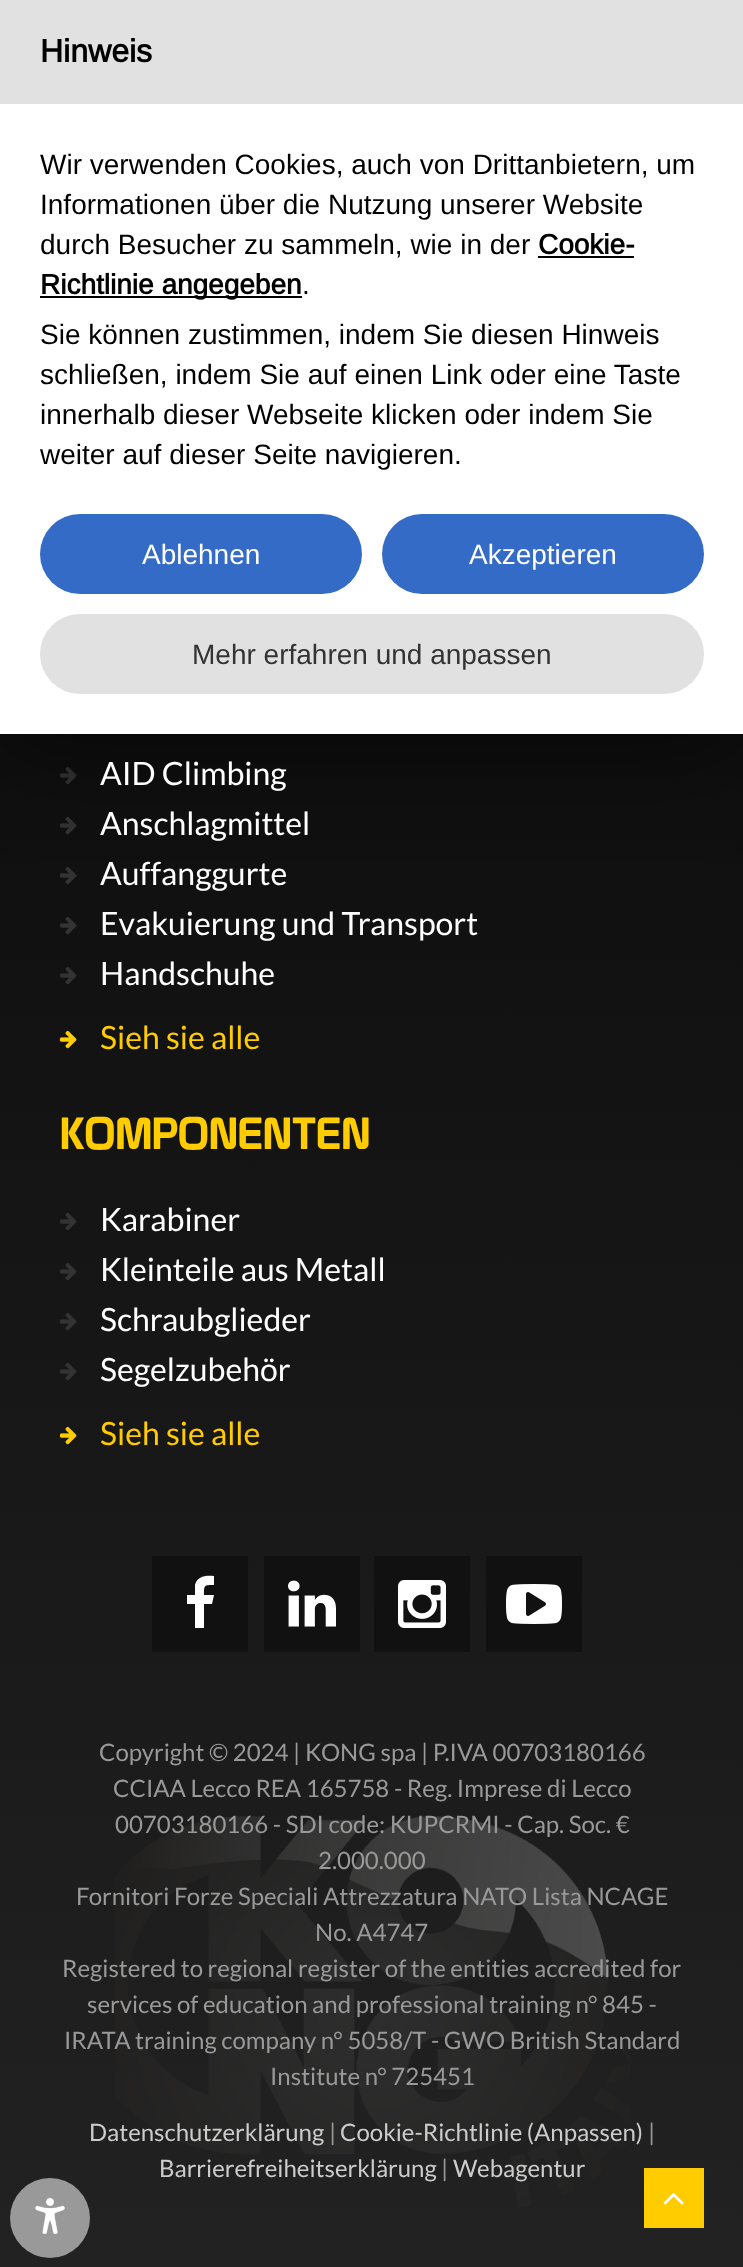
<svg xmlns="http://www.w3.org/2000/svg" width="743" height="2267">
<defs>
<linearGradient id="g1" gradientUnits="userSpaceOnUse" x1="372" y1="-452" x2="372" y2="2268"><stop offset="0" stop-color="#000"/><stop offset="1" stop-color="#222"/></linearGradient>
</defs>
<rect width="100%" height="100%" fill="#fff"/>
<rect y="734" width="743" height="1533" fill="url(#g1)"/>
<image x="67" y="734" width="2" height="1" href="media/1.png"/>
<image x="60" y="767" width="17" height="18" href="media/2.png"/>
<image x="60" y="817" width="17" height="18" href="media/3.png"/>
<image x="60" y="867" width="17" height="18" href="media/4.png"/>
<rect y="16" width="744" height="734" fill="#00000080" filter="blur(48px)"/>
<rect y="104" width="743" height="630" fill="#fff"/>
<rect width="743" height="104" fill="#e1e1e1"/>
<text x="40" y="62" style="font-family:Arimo;font-size:32px;font-weight:bold;fill:#000">Hinweis</text>
<text x="40" y="174" style="font-family:Arimo;font-size:28px;fill:#000">Wir verwenden Cookies, auch von Drittanbietern, um</text>
<text x="40" y="214" style="font-family:Arimo;font-size:28px;fill:#000">Informationen über die Nutzung unserer Website</text>
<text x="40" y="254" style="font-family:Arimo;font-size:28px;fill:#000">durch Besucher zu sammeln, wie in der</text>
<text x="538" y="254" style="font-family:Arimo;font-size:28px;font-weight:bold;fill:#000">Cookie-</text>
<rect x="538" y="256" width="96" height="2" fill="#000"/>
<rect x="40" y="296" width="262" height="2" fill="#000"/>
<text x="40" y="294" style="font-family:Arimo;font-size:28px;font-weight:bold;fill:#000">Richtlinie angegeben</text>
<text x="302" y="294" style="font-family:Arimo;font-size:28px;fill:#000">.</text>
<text x="40" y="344" style="font-family:Arimo;font-size:28px;fill:#000">Sie können zustimmen, indem Sie diesen Hinweis</text>
<text x="40" y="384" style="font-family:Arimo;font-size:28px;fill:#000">schließen, indem Sie auf einen Link oder eine Taste</text>
<text x="40" y="424" style="font-family:Arimo;font-size:28px;fill:#000">innerhalb dieser Webseite klicken oder indem Sie</text>
<text x="40" y="464" style="font-family:Arimo;font-size:28px;fill:#000">weiter auf dieser Seite navigieren.</text>
<rect x="40" y="514" width="322" height="80" rx="40" fill="#346bc7"/>
<text x="142" y="564" style="font-family:Arimo;font-size:28px;fill:#fff">Ablehnen</text>
<rect x="382" y="514" width="322" height="80" rx="40" fill="#346bc7"/>
<text x="469" y="564" style="font-family:Arimo;font-size:28px;fill:#fff">Akzeptieren</text>
<rect x="40" y="614" width="664" height="80" rx="40" fill="#e1e1e1"/>
<text x="192" y="664" style="font-family:Arimo;font-size:28px;fill:#333">Mehr erfahren und anpassen</text>
<text x="100" y="785" style="font-family:Lato;font-size:32px;fill:#fff">AID Climbing</text>
<text x="100" y="835" style="font-family:Lato;font-size:32px;fill:#fff">Anschlagmittel</text>
<text x="100" y="885" style="font-family:Lato;font-size:32px;fill:#fff">Auffanggurte</text>
<image x="60" y="917" width="17" height="18" href="media/5.png"/>
<text x="100" y="935" style="font-family:Lato;font-size:32px;fill:#fff">Evakuierung und Transport</text>
<image x="60" y="967" width="17" height="18" href="media/6.png"/>
<text x="100" y="985" style="font-family:Lato;font-size:32px;fill:#fff">Handschuhe</text>
<image x="60" y="1030" width="17" height="19" href="media/7.png"/>
<text x="100" y="1049" style="font-family:Lato;font-size:32px;fill:#fc0">Sieh sie alle</text>
<text x="60" y="1149" style="font-family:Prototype;font-size:44px;fill:#fc0">KOMPONENTEN</text>
<image x="60" y="1213" width="17" height="18" href="media/8.png"/>
<text x="100" y="1231" style="font-family:Lato;font-size:32px;fill:#fff">Karabiner</text>
<image x="60" y="1263" width="17" height="18" href="media/9.png"/>
<text x="100" y="1281" style="font-family:Lato;font-size:32px;fill:#fff">Kleinteile aus Metall</text>
<image x="60" y="1313" width="17" height="18" href="media/10.png"/>
<text x="100" y="1331" style="font-family:Lato;font-size:32px;fill:#fff">Schraubglieder</text>
<image x="60" y="1363" width="17" height="18" href="media/11.png"/>
<text x="100" y="1381" style="font-family:Lato;font-size:32px;fill:#fff">Segelzubehör</text>
<image x="60" y="1426" width="17" height="19" href="media/12.png"/>
<text x="100" y="1445" style="font-family:Lato;font-size:32px;fill:#fc0">Sieh sie alle</text>
<rect x="152" y="1556" width="96" height="96" fill="#111"/>
<path d="M214 1576v9c-10 0-10 0-10 10h10l-2 9h-8v24h-9v-24h-8v-9h8v-10c2-9 11-10 19-9z" fill="#fff"/>
<rect x="264" y="1556" width="96" height="96" fill="#111"/>
<image x="288" y="1580" width="48" height="47" href="media/13.png"/>
<rect x="374" y="1556" width="96" height="96" fill="#111"/>
<image x="398" y="1580" width="48" height="48" href="media/14.png"/>
<rect x="486" y="1556" width="96" height="96" fill="#111"/>
<image x="506" y="1584" width="56" height="40" href="media/15.png"/>
<text x="99" y="1761" style="font-family:Lato;font-size:24px;fill:#999">Copyright © 2024 | KONG spa | P.IVA 00703180166</text>
<text x="113" y="1797" style="font-family:Lato;font-size:24px;fill:#999">CCIAA Lecco REA 165758 - Reg. Imprese di Lecco</text>
<image x="115" y="1816" width="516" height="392" href="media/16.png"/>
<text x="115" y="1833" style="font-family:Lato;font-size:24px;fill:#999">00703180166 - SDI code: KUPCRMI - Cap. Soc. €</text>
<text x="318" y="1869" style="font-family:Lato;font-size:24px;fill:#999">2.000.000</text>
<text x="76" y="1905" style="font-family:Lato;font-size:24px;fill:#999">Fornitori Forze Speciali Attrezzatura NATO Lista NCAGE</text>
<text x="315" y="1941" style="font-family:Lato;font-size:24px;fill:#999">No. A4747</text>
<text x="62" y="1977" style="font-family:Lato;font-size:24px;fill:#999">Registered to regional register of the entities accredited for</text>
<text x="87" y="2013" style="font-family:Lato;font-size:24px;fill:#999">services of education and professional training n° 845 -</text>
<text x="64" y="2049" style="font-family:Lato;font-size:24px;fill:#999">IRATA training company n° 5058/T - GWO British Standard</text>
<text x="270" y="2085" style="font-family:Lato;font-size:24px;fill:#999">Institute n° 725451</text>
<text x="89" y="2141" style="font-family:Lato;font-size:24px;fill:#ccc">Datenschutzerklärung</text>
<text x="329" y="2141" style="font-family:Lato;font-size:24px;fill:#999">|</text>
<text x="340" y="2141" style="font-family:Lato;font-size:24px;fill:#ccc">Cookie-Richtlinie (Anpassen)</text>
<text x="648" y="2141" style="font-family:Lato;font-size:24px;fill:#999">|</text>
<text x="159" y="2177" style="font-family:Lato;font-size:24px;fill:#ccc">Barrierefreiheitserklärung</text>
<text x="441" y="2177" style="font-family:Lato;font-size:24px;fill:#999">|</text>
<text x="453" y="2177" style="font-family:Lato;font-size:24px;fill:#ccc">Webagentur</text>
<rect x="644" y="2168" width="60" height="60" fill="#fc0"/>
<image x="663" y="2193" width="21" height="12" href="media/17.png"/>
<circle cx="50" cy="2218" r="40" fill="#999"/>
<image x="35" y="2197" width="30" height="37" href="media/18.png"/>
</svg>
